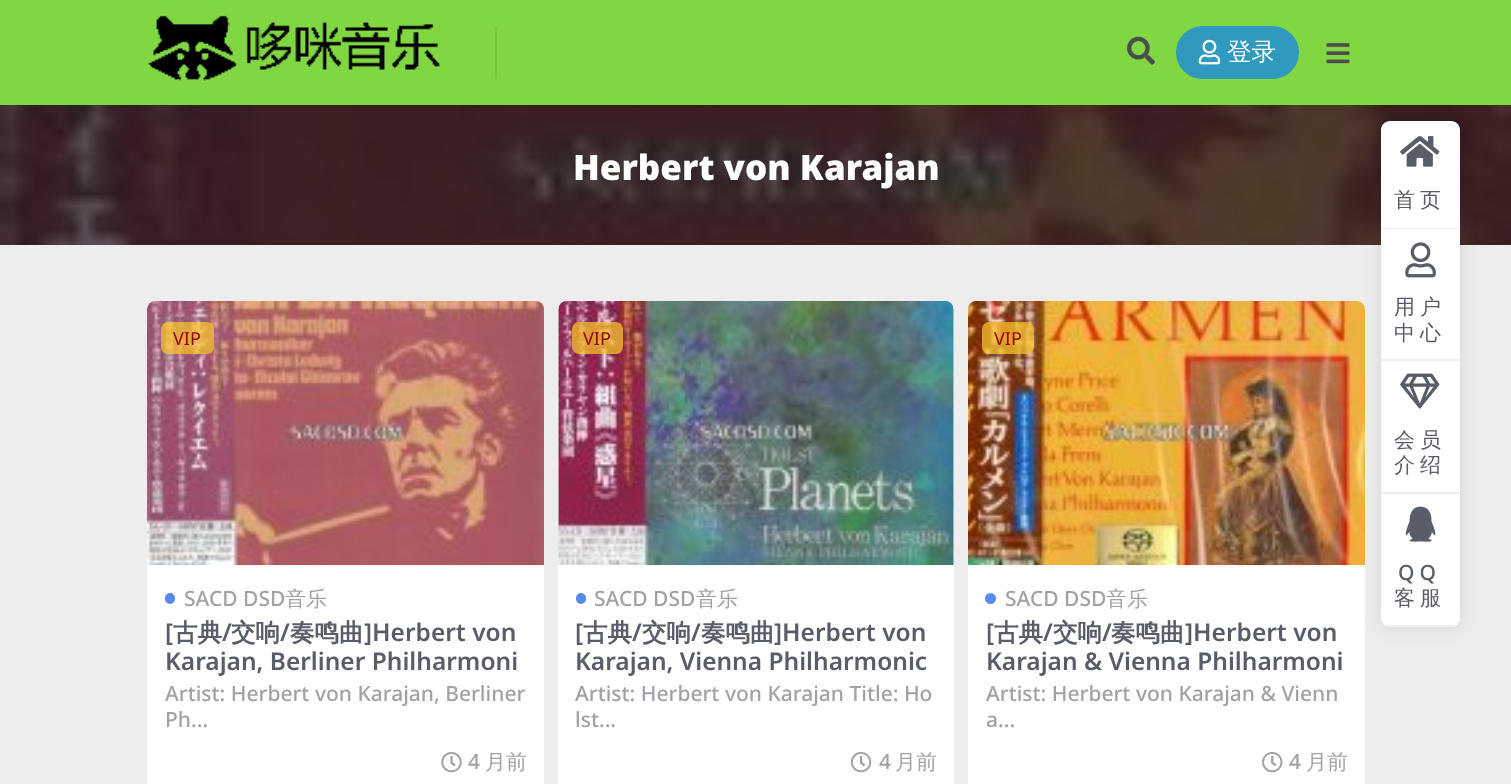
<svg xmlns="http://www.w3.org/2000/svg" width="1511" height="784">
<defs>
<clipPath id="clip1"><rect x="1381" y="121" width="79" height="506" rx="9"/></clipPath>
</defs>
<rect width="100%" height="100%" fill="#ededed"/>
<image x="0" y="105" width="1511" height="140" href="media/5.png"/>
<rect width="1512" height="105" fill="#00000012" filter="blur(26px)"/>
<rect width="1511" height="105" fill="#81d742"/>
<image x="148" y="15" width="292" height="66" href="media/1.png"/>
<rect x="495" y="26" width="2" height="53" fill="#77c43e"/>
<image x="1127" y="36" width="28" height="29" href="media/2.png"/>
<rect x="1176" y="26" width="123" height="53" rx="26.5" fill="#2f9abd"/>
<image x="1198" y="39" width="23" height="26" href="media/3.png"/>
<text x="1227" y="60" style="font-family:WenQuanYi Zen Hei;font-size:24.5px;font-weight:500;fill:#fff">登录</text>
<image x="1326" y="43" width="24" height="21" href="media/4.png"/>
<text x="573" y="180" style="font-family:Noto Sans;font-size:35px;font-weight:900;fill:#fff">Herbert von Karajan</text>
<rect x="147" y="301" width="397" height="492" rx="9" fill="#fff"/>
<image x="147" y="301" width="397" height="265" href="media/6.png"/>
<rect x="161" y="322" width="53" height="32" rx="7" fill="#f7c32ebf"/>
<text x="173" y="345" style="font-family:Noto Sans;font-size:18px;fill:#950000">VIP</text>
<rect x="165" y="593" width="10" height="11" rx="5" fill="#598aee"/>
<text x="184" y="606" style="font-family:Noto Sans;font-size:21px;font-weight:500;fill:#a1a1a8">SACD DSD</text>
<text x="285" y="606" style="font-family:WenQuanYi Zen Hei;font-size:21px;font-weight:500;fill:#a1a1a8">音乐</text>
<text x="165" y="641" style="font-family:Noto Sans;font-size:24.5px;font-weight:600;fill:#595d69">[</text>
<text x="173" y="641" style="font-family:WenQuanYi Zen Hei;font-size:24.5px;font-weight:bold;fill:#595d69">古典</text>
<text x="222" y="641" style="font-family:Noto Sans;font-size:24.5px;font-weight:600;fill:#595d69">/</text>
<text x="231" y="641" style="font-family:WenQuanYi Zen Hei;font-size:24.5px;font-weight:bold;fill:#595d69">交响</text>
<text x="280" y="641" style="font-family:Noto Sans;font-size:24.5px;font-weight:600;fill:#595d69">/</text>
<text x="290" y="641" style="font-family:WenQuanYi Zen Hei;font-size:24.5px;font-weight:bold;fill:#595d69">奏鸣曲</text>
<text x="364" y="641" style="font-family:Noto Sans;font-size:24.5px;font-weight:600;fill:#595d69">]Herbert von</text>
<text x="165" y="670" style="font-family:Noto Sans;font-size:24.5px;font-weight:600;fill:#595d69">Karajan, Berliner Philharmoni</text>
<text x="165" y="701" style="font-family:Noto Sans;font-size:21px;font-weight:500;fill:#a1a1a8">Artist: Herbert von Karajan, Berliner</text>
<text x="165" y="727" style="font-family:Noto Sans;font-size:21px;font-weight:500;fill:#a1a1a8">Ph...</text>
<image x="441" y="752" width="21" height="21" href="media/7.png"/>
<text x="468" y="769" style="font-family:Noto Sans;font-size:21px;font-weight:500;fill:#a1a1a8">4</text>
<text x="485" y="769" style="font-family:WenQuanYi Zen Hei;font-size:21px;font-weight:500;fill:#a1a1a8">月前</text>
<rect x="558" y="301" width="396" height="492" rx="9" fill="#fff"/>
<path d="M567 301h378c5 0 9 4 9 9v255h-396v-255c0-5 4-9 9-9z" fill="#e7e7e7"/>
<image x="558" y="301" width="396" height="265" href="media/8.png"/>
<rect x="572" y="322" width="51" height="32" rx="7" fill="#f7c32ebf"/>
<text x="583" y="345" style="font-family:Noto Sans;font-size:18px;fill:#950000">VIP</text>
<rect x="576" y="593" width="10" height="11" rx="5" fill="#598aee"/>
<text x="594" y="606" style="font-family:Noto Sans;font-size:21px;font-weight:500;fill:#a1a1a8">SACD DSD</text>
<text x="696" y="606" style="font-family:WenQuanYi Zen Hei;font-size:21px;font-weight:500;fill:#a1a1a8">音乐</text>
<text x="575" y="641" style="font-family:Noto Sans;font-size:24.5px;font-weight:600;fill:#595d69">[</text>
<text x="583" y="641" style="font-family:WenQuanYi Zen Hei;font-size:24.5px;font-weight:bold;fill:#595d69">古典</text>
<text x="632" y="641" style="font-family:Noto Sans;font-size:24.5px;font-weight:600;fill:#595d69">/</text>
<text x="642" y="641" style="font-family:WenQuanYi Zen Hei;font-size:24.5px;font-weight:bold;fill:#595d69">交响</text>
<text x="691" y="641" style="font-family:Noto Sans;font-size:24.5px;font-weight:600;fill:#595d69">/</text>
<text x="701" y="641" style="font-family:WenQuanYi Zen Hei;font-size:24.5px;font-weight:bold;fill:#595d69">奏鸣曲</text>
<text x="774" y="641" style="font-family:Noto Sans;font-size:24.5px;font-weight:600;fill:#595d69">]Herbert von</text>
<text x="575" y="670" style="font-family:Noto Sans;font-size:24.5px;font-weight:600;fill:#595d69">Karajan, Vienna Philharmonic</text>
<text x="575" y="701" style="font-family:Noto Sans;font-size:21px;font-weight:500;fill:#a1a1a8">Artist: Herbert von Karajan Title: Ho</text>
<text x="575" y="727" style="font-family:Noto Sans;font-size:21px;font-weight:500;fill:#a1a1a8">lst...</text>
<image x="850" y="752" width="22" height="21" href="media/9.png"/>
<text x="879" y="769" style="font-family:Noto Sans;font-size:21px;font-weight:500;fill:#a1a1a8">4</text>
<text x="895" y="769" style="font-family:WenQuanYi Zen Hei;font-size:21px;font-weight:500;fill:#a1a1a8">月前</text>
<rect x="968" y="301" width="397" height="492" rx="9" fill="#fff"/>
<image x="968" y="301" width="397" height="265" href="media/10.png"/>
<rect x="982" y="322" width="52" height="32" rx="7" fill="#f7c32ebf"/>
<text x="994" y="345" style="font-family:Noto Sans;font-size:18px;fill:#950000">VIP</text>
<circle cx="990.5" cy="598.5" r="5.5" fill="#598aee"/>
<text x="1005" y="606" style="font-family:Noto Sans;font-size:21px;font-weight:500;fill:#a1a1a8">SACD DSD</text>
<text x="1106" y="606" style="font-family:WenQuanYi Zen Hei;font-size:21px;font-weight:500;fill:#a1a1a8">音乐</text>
<text x="986" y="641" style="font-family:Noto Sans;font-size:24.5px;font-weight:600;fill:#595d69">[</text>
<text x="994" y="641" style="font-family:WenQuanYi Zen Hei;font-size:24.5px;font-weight:bold;fill:#595d69">古典</text>
<text x="1043" y="641" style="font-family:Noto Sans;font-size:24.5px;font-weight:600;fill:#595d69">/</text>
<text x="1053" y="641" style="font-family:WenQuanYi Zen Hei;font-size:24.5px;font-weight:bold;fill:#595d69">交响</text>
<text x="1102" y="641" style="font-family:Noto Sans;font-size:24.5px;font-weight:600;fill:#595d69">/</text>
<text x="1111" y="641" style="font-family:WenQuanYi Zen Hei;font-size:24.5px;font-weight:bold;fill:#595d69">奏鸣曲</text>
<text x="1185" y="641" style="font-family:Noto Sans;font-size:24.5px;font-weight:600;fill:#595d69">]Herbert von</text>
<text x="986" y="670" style="font-family:Noto Sans;font-size:24.5px;font-weight:600;fill:#595d69">Karajan &amp; Vienna Philharmoni</text>
<text x="986" y="701" style="font-family:Noto Sans;font-size:21px;font-weight:500;fill:#a1a1a8">Artist: Herbert von Karajan &amp; Vienn</text>
<text x="986" y="727" style="font-family:Noto Sans;font-size:21px;font-weight:500;fill:#a1a1a8">a...</text>
<image x="1262" y="752" width="21" height="21" href="media/11.png"/>
<text x="1289" y="769" style="font-family:Noto Sans;font-size:21px;font-weight:500;fill:#a1a1a8">4</text>
<text x="1306" y="769" style="font-family:WenQuanYi Zen Hei;font-size:21px;font-weight:500;fill:#a1a1a8">月前</text>
<rect x="1381" y="121" width="79" height="506" rx="9" fill="#0000001a" filter="blur(9px)"/>
<path d="M1390 121h61c5 0 9 4 9 9v99h-79v-99c0-5 4-9 9-9z" fill="#fff"/>
<rect x="1381" y="228" width="79" height="1" fill="#eee"/>
<image x="1400" y="136" width="40" height="31" href="media/12.png"/>
<text x="1394" y="207" style="font-family:WenQuanYi Zen Hei;font-size:21px;font-weight:500;letter-spacing:5px;fill:#595d69">首页</text>
<rect x="1381" y="229" width="79" height="130" fill="#fff"/>
<rect x="1381" y="359" width="79" height="2" fill="#eee"/>
<image x="1405" y="242" width="31" height="36" href="media/13.png"/>
<text x="1394" y="314" style="font-family:WenQuanYi Zen Hei;font-size:21px;font-weight:500;letter-spacing:5px;fill:#595d69">用户</text>
<text x="1394" y="340" style="font-family:WenQuanYi Zen Hei;font-size:21px;font-weight:500;letter-spacing:5px;fill:#595d69">中心</text>
<rect x="1381" y="361" width="79" height="131" fill="#fff"/>
<rect x="1381" y="492" width="79" height="2" fill="#eee"/>
<image x="1400" y="373" width="40" height="36" href="media/14.png"/>
<text x="1394" y="447" style="font-family:WenQuanYi Zen Hei;font-size:21px;font-weight:500;letter-spacing:5px;fill:#595d69">会员</text>
<text x="1394" y="472" style="font-family:WenQuanYi Zen Hei;font-size:21px;font-weight:500;letter-spacing:5px;fill:#595d69">介绍</text>
<path d="M1381 494h79v124c0 5-4 9-9 9h-61c-5 0-9-4-9-9z" fill="#fff"/>
<g clip-path="url(#clip1)">
<rect x="1381" y="625" width="79" height="2" fill="#eee"/>
</g>
<image x="1405" y="506" width="31" height="36" href="media/15.png"/>
<text x="1398" y="580" style="font-family:Noto Sans;font-size:21px;font-weight:500;letter-spacing:5px;fill:#595d69">QQ</text>
<text x="1394" y="605" style="font-family:WenQuanYi Zen Hei;font-size:21px;font-weight:500;letter-spacing:5px;fill:#595d69">客服</text>
</svg>
